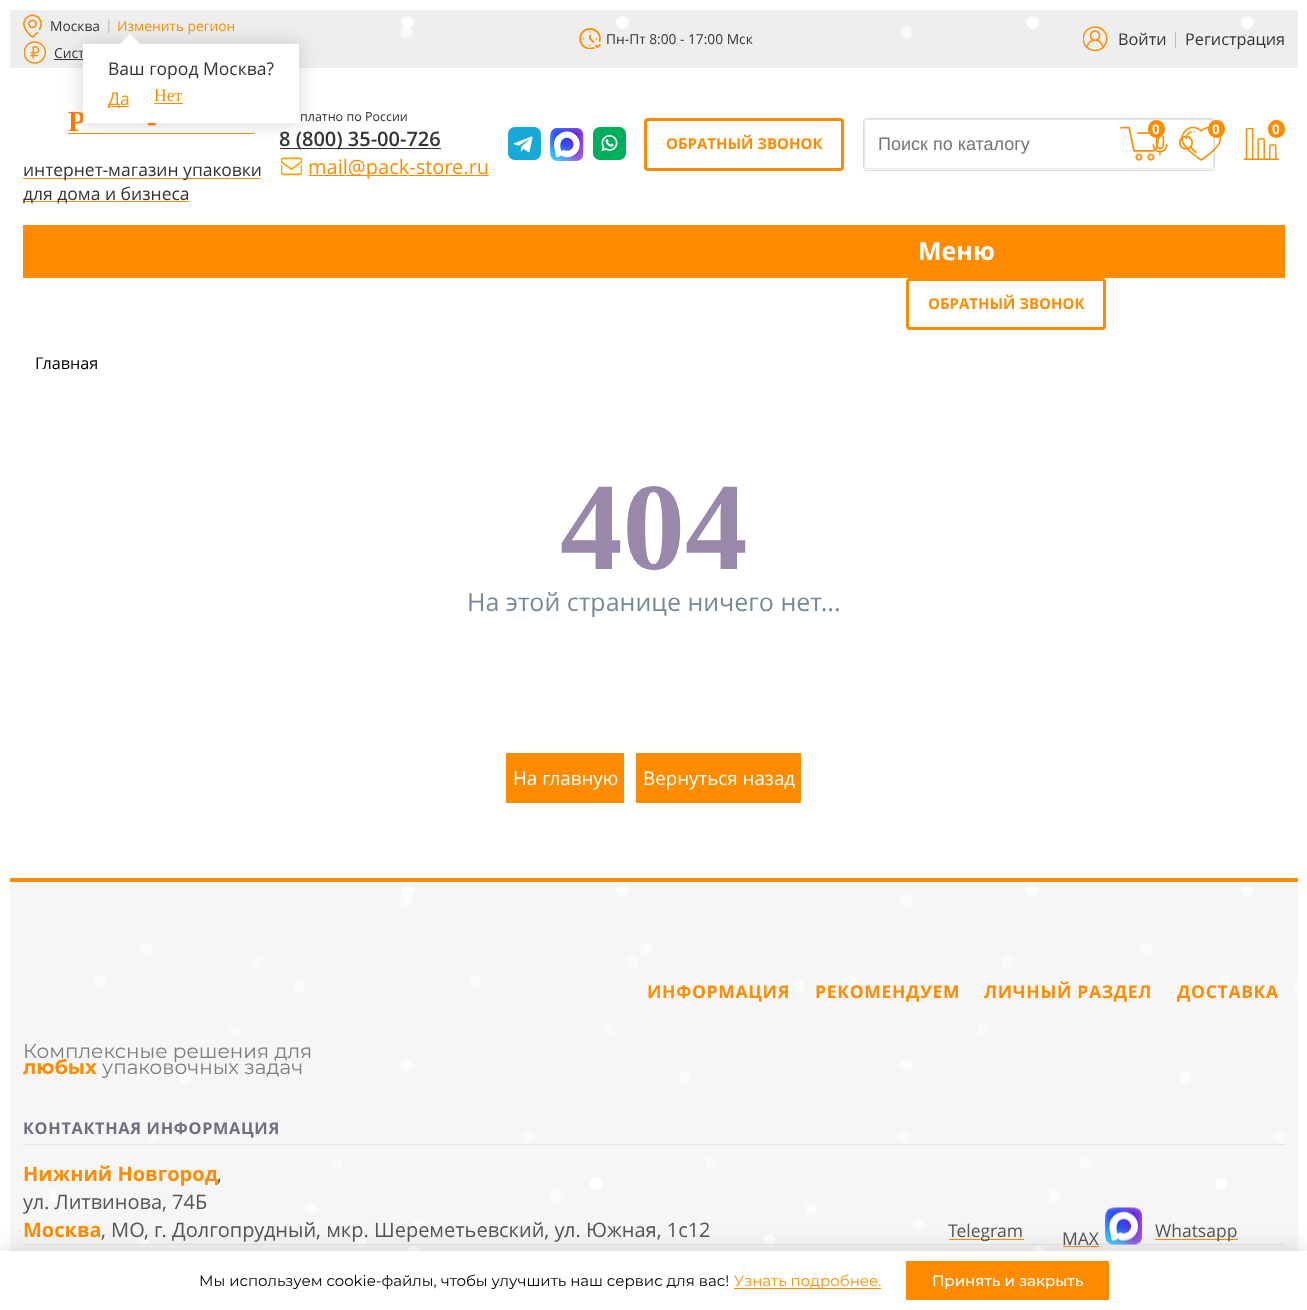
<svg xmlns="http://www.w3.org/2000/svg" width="1307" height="1310">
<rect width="100%" height="100%" fill="#fff"/>
<rect x="10" y="10" width="1288" height="58" fill="#eee"/>
<image x="400" y="16" width="854" height="23" href="media/1.png"/>
<image x="23" y="14" width="19" height="24" href="media/2.png"/>
<text x="50" y="31" style="font-family:Open Sans;font-size:13.75px;fill:#333">Москва</text>
<text x="105" y="30" style="font-family:Open Sans;font-size:13.75px;fill:#bbb">|</text>
<text x="117" y="31" style="font-family:Open Sans;font-size:13.75px;fill:#ff8c00">Изменить регион</text>
<rect x="54" y="59" width="29" height="1" fill="#333"/>
<rect x="68" y="133" width="186" height="1" fill="#ff8c00"/>
<rect x="280" y="148" width="161" height="1" fill="#333"/>
<rect x="83" y="44" width="216" height="79" fill="#8383835c" filter="blur(9.5px)"/>
<text x="54" y="58" style="font-family:Open Sans;font-size:13.75px;fill:#333">Сист</text>
<text x="68" y="131" style="font-family:Liberation Serif;font-size:29px;font-weight:bold;fill:#f70">P</text>
<rect x="83" y="44" width="216" height="79" fill="#fff"/>
<path d="M140 44h-20l10-10z" fill="#fff"/>
<text x="108" y="75" style="font-family:Open Sans;font-size:17.5px;fill:#333">Ваш город Москва?</text>
<rect x="108" y="106" width="21" height="1" fill="#ff8c00"/>
<text x="108" y="105" style="font-family:Open Sans;font-size:17.5px;fill:#ff8c00">Да</text>
<text x="154" y="101" style="font-family:Liberation Serif;font-size:17.5px;fill:#ff8c00">Нет</text>
<rect x="154" y="103" width="29" height="1" fill="#ff8c00"/>
<image x="24" y="41" width="22" height="23" href="media/3.png"/>
<image x="579" y="28" width="22" height="21" href="media/4.png"/>
<text x="606" y="44" style="font-family:Open Sans;font-size:13.75px;fill:#333">Пн-Пт 8:00 - 17:00 Мск</text>
<image x="1083" y="26" width="25" height="25" href="media/5.png"/>
<text x="1118" y="45" style="font-family:Open Sans;font-size:16.25px;fill:#333">Войти</text>
<text x="1171" y="44" style="font-family:Open Sans;font-size:16.25px;fill:#bbb">|</text>
<text x="1185" y="45" style="font-family:Open Sans;font-size:16.25px;fill:#333">Регистрация</text>
<text x="147" y="131" style="font-family:Liberation Serif;font-size:29px;font-weight:bold;fill:#f70">-</text>
<rect x="23" y="178" width="238" height="1" fill="#ff8c00"/>
<text x="23" y="176" style="font-family:Open Sans;font-size:17.5px;fill:#333">интернет-магазин упаковки</text>
<rect x="23" y="201" width="166" height="1" fill="#ff8c00"/>
<text x="23" y="200" style="font-family:Open Sans;font-size:17.5px;fill:#333">для дома и бизнеса</text>
<text x="300" y="121" style="font-family:Open Sans;font-size:12.5px;fill:#333">платно по России</text>
<text x="279" y="146" style="font-family:Open Sans;font-size:20px;font-weight:600;fill:#333">8 (800) 35-00-726</text>
<image x="280" y="157" width="23" height="19" href="media/6.png"/>
<rect x="309" y="175" width="180" height="1" fill="#ff8c00"/>
<text x="308" y="174" style="font-family:Open Sans;font-size:20px;fill:#ff8c00">mail@pack-store.ru</text>
<image x="508" y="127" width="33" height="33" href="media/7.png"/>
<image x="550" y="128" width="34" height="33" href="media/8.png"/>
<image x="593" y="127" width="33" height="33" href="media/9.png"/>
<rect x="645.5" y="119.5" width="197" height="50" rx="2.5" fill="none" stroke="#ff8c00" stroke-width="3"/>
<text x="666" y="149" style="font-family:Open Sans;font-size:15px;font-weight:bold;fill:#ff8c00">ОБРАТНЫЙ ЗВОНОК</text>
<rect x="863.5" y="118.5" width="351" height="52" rx="3.5" fill="none" stroke="#d9d9d9"/>
<rect x="864.5" y="119.5" width="349" height="49" rx="3.5" fill="#fff" stroke="#e7e7e7"/>
<text x="878" y="150" style="font-family:Liberation Sans;font-size:18px;fill:#757575">Поиск по каталогу</text>
<image x="1152" y="135" width="16" height="21" href="media/10.png"/>
<image x="1181" y="126" width="40" height="35" href="media/13.png"/>
<image x="1179" y="135" width="18" height="19" href="media/11.png"/>
<image x="1120" y="126" width="41" height="35" href="media/12.png"/>
<rect x="1148" y="120" width="17" height="18" rx="8.5" fill="#ff8c00"/>
<text x="1152" y="134" style="font-family:Liberation Sans;font-size:13.75px;font-weight:bold;fill:#fff">0</text>
<rect x="1208" y="120" width="17" height="18" rx="8.5" fill="#ff8c00"/>
<text x="1212" y="134" style="font-family:Liberation Sans;font-size:13.75px;font-weight:bold;fill:#fff">0</text>
<image x="1243" y="128" width="36" height="32" href="media/14.png"/>
<rect x="1268" y="120" width="17" height="18" rx="8.5" fill="#ff8c00"/>
<text x="1272" y="134" style="font-family:Liberation Sans;font-size:13.75px;font-weight:bold;fill:#fff">0</text>
<rect x="23" y="225" width="1262" height="53" fill="#ff8c00"/>
<text x="918" y="260" style="font-family:Open Sans;font-size:25px;font-weight:bold;fill:#fff">Меню</text>
<rect x="907.5" y="279.5" width="197" height="49" rx="2.5" fill="none" stroke="#ff8c00" stroke-width="3"/>
<text x="928" y="309" style="font-family:Open Sans;font-size:15px;font-weight:bold;fill:#ff8c00">ОБРАТНЫЙ ЗВОНОК</text>
<text x="35" y="369" style="font-family:Open Sans;font-size:16.25px;fill:#000">Главная</text>
<text x="560" y="569" style="font-family:Liberation Serif;font-size:125px;font-weight:bold;fill:#98a">404</text>
<text x="467" y="611" style="font-family:Open Sans;font-size:25px;fill:#789">На этой странице ничего нет...</text>
<rect x="506" y="753" width="118" height="50" fill="#ff8c00"/>
<text x="513" y="785" style="font-family:Open Sans;font-size:18.75px;fill:#fff">На главную</text>
<rect x="636" y="753" width="165" height="50" fill="#ff8c00"/>
<text x="643" y="785" style="font-family:Open Sans;font-size:18.75px;fill:#fff">Вернуться назад</text>
<rect x="10" y="882" width="1288" height="369" fill="#f6f6f7"/>
<image x="49" y="884" width="1248" height="367" href="media/15.png"/>
<rect x="10" y="878" width="1288" height="4" fill="#ff8c00"/>
<text x="647" y="998" style="font-family:Open Sans;font-size:17.5px;font-weight:bold;letter-spacing:0.7px;fill:#ff8c00">ИНФОРМАЦИЯ</text>
<text x="815" y="998" style="font-family:Open Sans;font-size:17.5px;font-weight:bold;letter-spacing:0.7px;fill:#ff8c00">РЕКОМЕНДУЕМ</text>
<text x="984" y="998" style="font-family:Open Sans;font-size:17.5px;font-weight:bold;letter-spacing:0.7px;fill:#ff8c00">ЛИЧНЫЙ РАЗДЕЛ</text>
<text x="1177" y="998" style="font-family:Open Sans;font-size:17.5px;font-weight:bold;letter-spacing:0.7px;fill:#ff8c00">ДОСТАВКА</text>
<text x="23" y="1058" style="font-family:Montserrat;font-size:20px;fill:#7d7d7d">Комплексные решения для</text>
<text x="23" y="1074" style="font-family:Montserrat;font-size:20px;font-weight:bold;fill:#ff8c00">любых</text>
<text x="102" y="1074" style="font-family:Montserrat;font-size:20px;fill:#7d7d7d">упаковочных задач</text>
<rect x="23" y="1144" width="1262" height="1" fill="#e6e6e6"/>
<text x="23" y="1134" style="font-family:Open Sans;font-size:16.25px;font-weight:bold;letter-spacing:0.7px;fill:#6e6e80">КОНТАКТНАЯ ИНФОРМАЦИЯ</text>
<text x="23" y="1181" style="font-family:Open Sans;font-size:20px;font-weight:bold;fill:#ff8c00">Нижний Новгород</text>
<text x="217" y="1181" style="font-family:Open Sans;font-size:20px;fill:#555">,</text>
<text x="23" y="1209" style="font-family:Open Sans;font-size:20px;fill:#555">ул. Литвинова, 74Б</text>
<text x="23" y="1237" style="font-family:Open Sans;font-size:20px;font-weight:bold;fill:#ff8c00">Москва</text>
<text x="101" y="1237" style="font-family:Open Sans;font-size:20px;fill:#555">, МО, г. Долгопрудный, мкр. Шереметьевский, ул. Южная, 1с12</text>
<rect x="23" y="1244" width="1262" height="1" fill="#e6e6e6"/>
<rect x="949" y="1239" width="75" height="1" fill="#ff8c00"/>
<text x="948" y="1237" style="font-family:Open Sans;font-size:17.5px;fill:#555">Telegram</text>
<text x="1062" y="1245" style="font-family:Open Sans;font-size:17.5px;fill:#555">MAX</text>
<rect x="1063" y="1246" width="36" height="1" fill="#ff8c00"/>
<image x="1105" y="1207" width="38" height="39" href="media/16.png"/>
<rect x="1155" y="1239" width="83" height="1" fill="#ff8c00"/>
<text x="1155" y="1237" style="font-family:Open Sans;font-size:17.5px;fill:#555">Whatsapp</text>
<rect y="1251" width="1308" height="59" fill="#00000026" filter="blur(12.5px)"/>
<rect y="1251" width="1307" height="59" fill="#fff"/>
<text x="199" y="1286" style="font-family:Montserrat;font-size:15px;fill:#000">Мы используем cookie-файлы, чтобы улучшить наш сервис для вас!</text>
<rect x="734" y="1288" width="147" height="1" fill="#ff8c00"/>
<text x="734" y="1286" style="font-family:Montserrat;font-size:15px;fill:#ff8c00">Узнать подробнее.</text>
<rect x="906" y="1261" width="203" height="39" fill="#ff8c00"/>
<text x="932" y="1286" style="font-family:Montserrat;font-size:15px;font-weight:500;fill:#fff">Принять и закрыть</text>
</svg>
